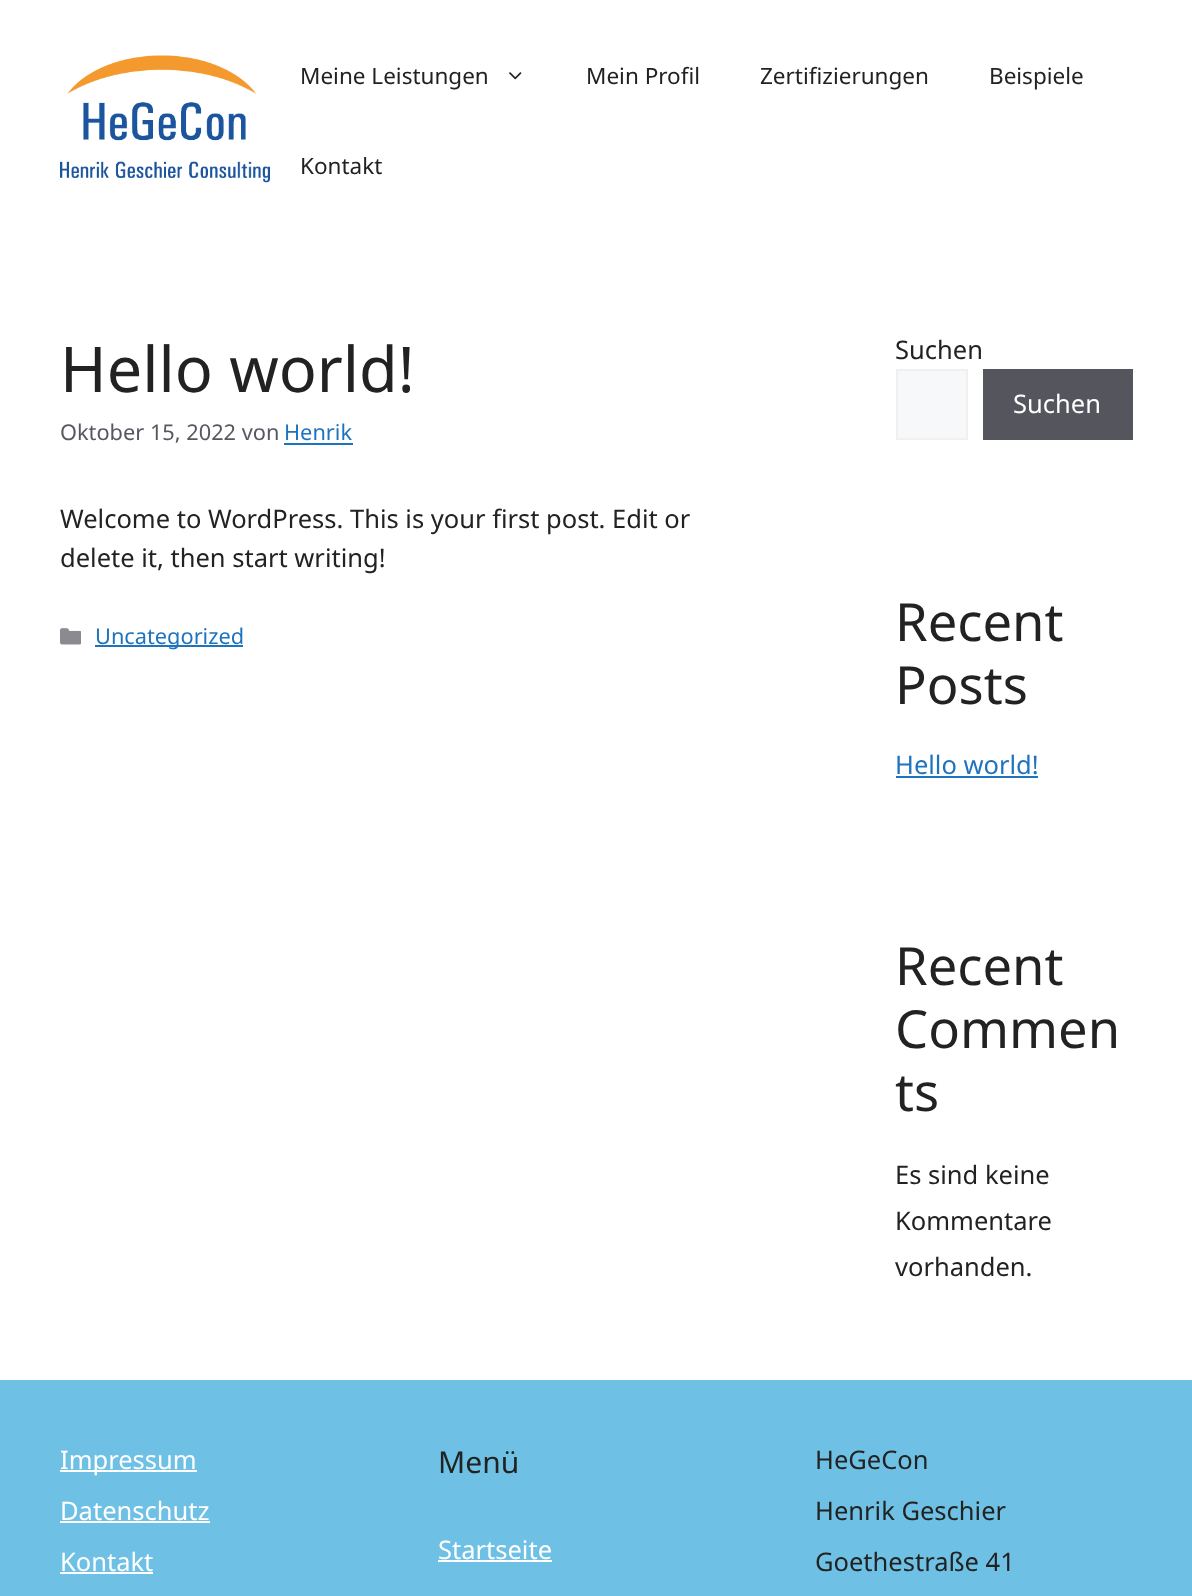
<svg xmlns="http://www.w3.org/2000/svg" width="1192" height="1596">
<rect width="100%" height="100%" fill="#fff"/>
<image x="60" y="55" width="210" height="128" href="media/1.png"/>
<text x="300" y="84" style="font-family:Noto Sans;font-size:22.5px;fill:#222">Meine Leistungen</text>
<image x="509" y="72" width="13" height="8" href="media/2.png"/>
<text x="586" y="84" style="font-family:Noto Sans;font-size:22.5px;fill:#222">Mein Profil</text>
<text x="760" y="84" style="font-family:Noto Sans;font-size:22.5px;fill:#222">Zertifizierungen</text>
<text x="989" y="84" style="font-family:Noto Sans;font-size:22.5px;fill:#222">Beispiele</text>
<text x="300" y="174" style="font-family:Noto Sans;font-size:22.5px;fill:#222">Kontakt</text>
<text x="60" y="392" style="font-family:Noto Sans;font-size:63px;fill:#222">Hello world!</text>
<text x="60" y="440" style="font-family:Noto Sans;font-size:21.75px;fill:#575760">Oktober 15, 2022 von</text>
<text x="284" y="440" style="font-family:Noto Sans;font-size:21.75px;fill:#1e73be">Henrik</text>
<rect x="284" y="443" width="69" height="2" fill="#1e73be"/>
<text x="60" y="528" style="font-family:Noto Sans;font-size:25.5px;fill:#222">Welcome to WordPress. This is your first post. Edit or</text>
<text x="60" y="567" style="font-family:Noto Sans;font-size:25.5px;fill:#222">delete it, then start writing!</text>
<image x="60" y="628" width="21" height="17" href="media/3.png"/>
<rect x="95" y="645" width="148" height="2" fill="#1e73be"/>
<text x="95" y="644" style="font-family:Noto Sans;font-size:21.75px;fill:#1e73be">Uncategorized</text>
<text x="895" y="359" style="font-family:Noto Sans;font-size:25.5px;fill:#222">Suchen</text>
<rect x="897" y="370" width="70" height="69" fill="#f7f8f9" stroke="#f0f0f0" stroke-width="2"/>
<rect x="983" y="369" width="150" height="71" fill="#55555e"/>
<text x="1013" y="413" style="font-family:Noto Sans;font-size:25.5px;fill:#fff">Suchen</text>
<text x="895" y="641" style="font-family:Noto Sans;font-size:52.5px;fill:#222">Recent</text>
<text x="895" y="704" style="font-family:Noto Sans;font-size:52.5px;fill:#222">Posts</text>
<text x="895" y="774" style="font-family:Noto Sans;font-size:25.5px;fill:#1e73be">Hello world!</text>
<rect x="896" y="776" width="142" height="2" fill="#1e73be"/>
<text x="895" y="985" style="font-family:Noto Sans;font-size:52.5px;fill:#222">Recent</text>
<text x="895" y="1048" style="font-family:Noto Sans;font-size:52.5px;fill:#222">Commen</text>
<text x="895" y="1111" style="font-family:Noto Sans;font-size:52.5px;fill:#222">ts</text>
<text x="895" y="1184" style="font-family:Noto Sans;font-size:25.5px;fill:#222">Es sind keine</text>
<text x="895" y="1230" style="font-family:Noto Sans;font-size:25.5px;fill:#222">Kommentare</text>
<text x="895" y="1276" style="font-family:Noto Sans;font-size:25.5px;fill:#222">vorhanden.</text>
<rect y="1380" width="1192" height="216" fill="#6ec1e4"/>
<rect x="60" y="1470" width="137" height="2" fill="#fff"/>
<text x="60" y="1469" style="font-family:Noto Sans;font-size:25.5px;fill:#fff">Impressum</text>
<text x="60" y="1520" style="font-family:Noto Sans;font-size:25.5px;fill:#fff">Datenschutz</text>
<rect x="60" y="1521" width="150" height="2" fill="#fff"/>
<text x="60" y="1571" style="font-family:Noto Sans;font-size:25.5px;fill:#fff">Kontakt</text>
<rect x="60" y="1572" width="93" height="2" fill="#fff"/>
<text x="438" y="1473" style="font-family:Noto Sans;font-size:30px;fill:#222">Menü</text>
<text x="438" y="1559" style="font-family:Noto Sans;font-size:25.5px;fill:#fff">Startseite</text>
<rect x="438" y="1560" width="114" height="2" fill="#fff"/>
<text x="815" y="1469" style="font-family:Noto Sans;font-size:25.5px;fill:#222">HeGeCon</text>
<text x="815" y="1520" style="font-family:Noto Sans;font-size:25.5px;fill:#222">Henrik Geschier</text>
<text x="815" y="1571" style="font-family:Noto Sans;font-size:25.5px;fill:#222">Goethestraße 41</text>
</svg>
